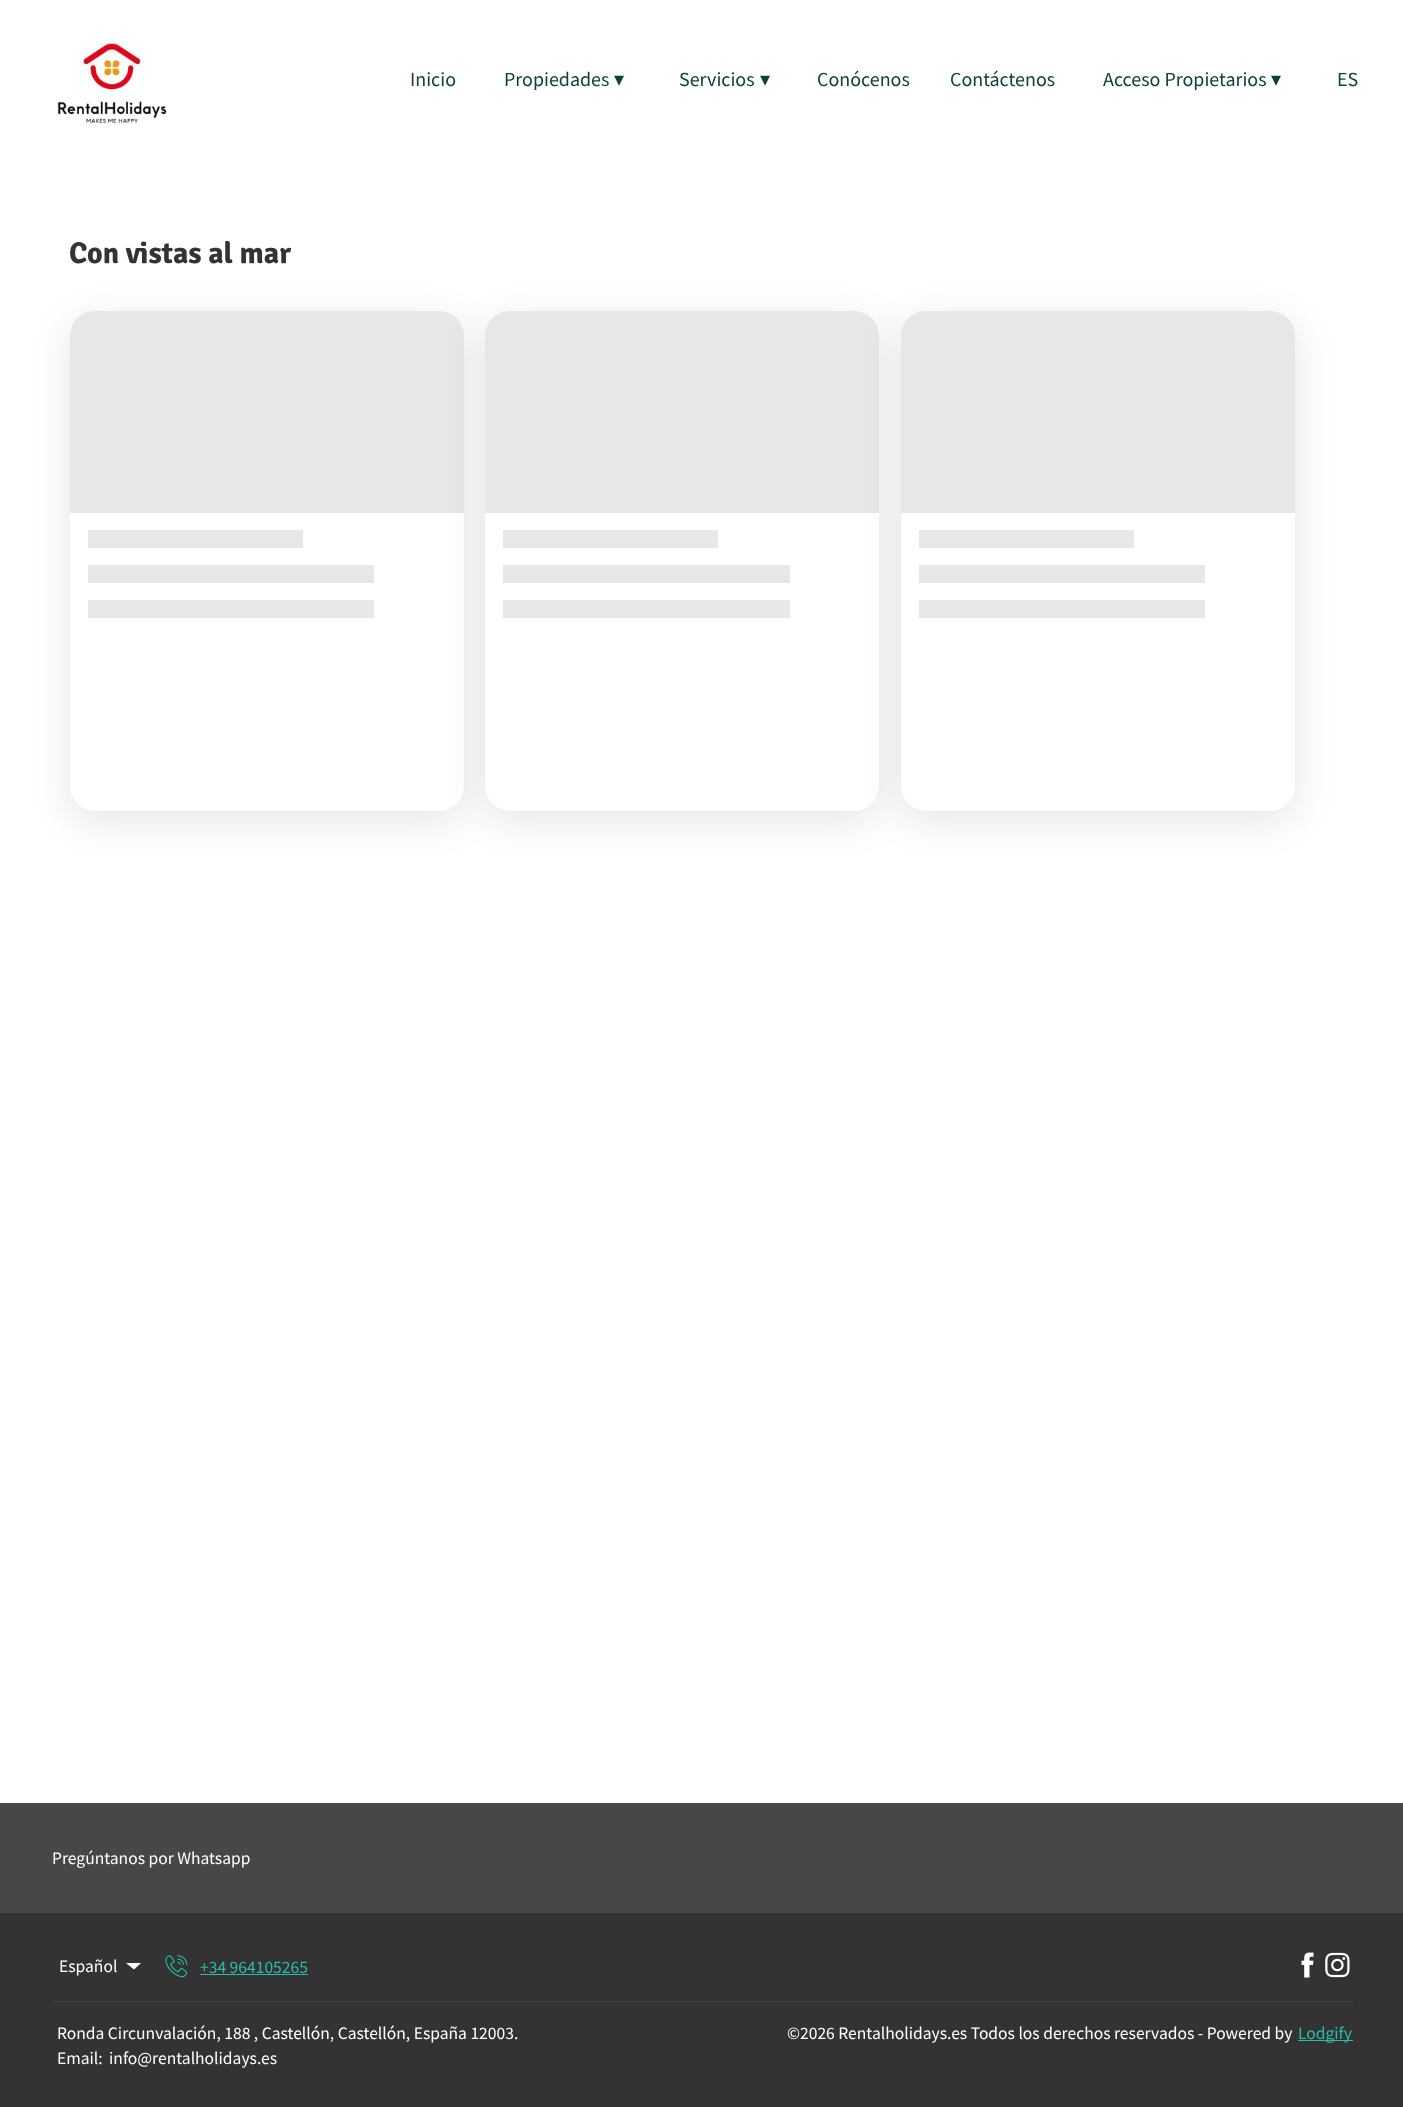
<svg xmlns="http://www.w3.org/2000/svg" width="1403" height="2107">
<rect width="100%" height="100%" fill="#fff"/>
<image x="57" y="39" width="110" height="85" href="media/1.png"/>
<text x="410" y="86" style="font-family:Source Sans Pro;font-size:20px;fill:#0c423c">Inicio</text>
<text x="504" y="86" style="font-family:Source Sans Pro;font-size:20px;fill:#0c423c">Propiedades</text>
<text x="614" y="86" style="font-family:DejaVu Sans;font-size:20px;fill:#0c423c">▾</text>
<text x="679" y="86" style="font-family:Source Sans Pro;font-size:20px;fill:#0c423c">Servicios</text>
<text x="760" y="86" style="font-family:DejaVu Sans;font-size:20px;fill:#0c423c">▾</text>
<text x="817" y="86" style="font-family:Source Sans Pro;font-size:20px;fill:#0c423c">Conócenos</text>
<text x="950" y="86" style="font-family:Source Sans Pro;font-size:20px;fill:#0c423c">Contáctenos</text>
<text x="1103" y="86" style="font-family:Source Sans Pro;font-size:20px;fill:#0c423c">Acceso Propietarios</text>
<text x="1271" y="86" style="font-family:DejaVu Sans;font-size:20px;fill:#0c423c">▾</text>
<text x="1337" y="86" style="font-family:Source Sans Pro;font-size:20px;fill:#0c423c">ES</text>
<text x="69" y="263" style="font-family:Signika;font-size:30px;font-weight:bold;fill:#333">Con vistas al mar</text>
<rect x="70" y="321" width="394" height="500" rx="25" fill="#0000001a" filter="blur(19px)"/>
<rect x="70" y="311" width="394" height="500" rx="25" fill="#fff"/>
<path d="M95 311h344c14 0 25 11 25 25v177h-394v-177c0-14 11-25 25-25z" fill="#e7e7e7"/>
<rect x="88" y="530" width="215" height="18" fill="#e7e7e7"/>
<rect x="88" y="565" width="286" height="18" fill="#e7e7e7"/>
<rect x="88" y="600" width="286" height="18" fill="#e7e7e7"/>
<rect x="485" y="321" width="394" height="500" rx="25" fill="#0000001a" filter="blur(19px)"/>
<rect x="485" y="311" width="394" height="500" rx="25" fill="#fff"/>
<path d="M510 311h344c14 0 25 11 25 25v177h-394v-177c0-14 11-25 25-25z" fill="#e7e7e7"/>
<rect x="503" y="530" width="215" height="18" fill="#e7e7e7"/>
<rect x="503" y="565" width="287" height="18" fill="#e7e7e7"/>
<rect x="503" y="600" width="287" height="18" fill="#e7e7e7"/>
<rect x="901" y="321" width="394" height="500" rx="25" fill="#0000001a" filter="blur(19px)"/>
<rect x="901" y="311" width="394" height="500" rx="25" fill="#fff"/>
<path d="M926 311h344c14 0 25 11 25 25v177h-394v-177c0-14 11-25 25-25z" fill="#e7e7e7"/>
<rect x="919" y="530" width="215" height="18" fill="#e7e7e7"/>
<rect x="919" y="565" width="286" height="18" fill="#e7e7e7"/>
<rect x="919" y="600" width="286" height="18" fill="#e7e7e7"/>
<rect y="1803" width="1403" height="110" fill="#474747"/>
<text x="52" y="1864" style="font-family:Source Sans Pro;font-size:17.5px;fill:#fff">Pregúntanos por Whatsapp</text>
<rect y="1913" width="1403" height="194" fill="#333"/>
<text x="59" y="1972" style="font-family:Source Sans Pro;font-size:17.5px;fill:#fff">Español</text>
<path d="M141 1963l-7 6.5l-8-6.5z" fill="#fff"/>
<image x="165" y="1955" width="23" height="23" href="media/2.png"/>
<text x="200" y="1973" style="font-family:Source Sans Pro;font-size:17.5px;fill:#28bcae">+34 964105265</text>
<rect x="200" y="1974" width="108" height="1" fill="#28bcae"/>
<image x="1301" y="1952" width="13" height="26" href="media/3.png"/>
<image x="1325" y="1952" width="25" height="26" href="media/4.png"/>
<rect x="53" y="2000" width="1300" height="1" fill="#303131"/>
<rect x="53" y="2001" width="1300" height="1" fill="#474747"/>
<text x="57" y="2039" style="font-family:Source Sans Pro;font-size:17.5px;fill:#fff">Ronda Circunvalación, 188 , Castellón, Castellón, España 12003.</text>
<text x="57" y="2064" style="font-family:Source Sans Pro;font-size:17.5px;fill:#fff">Email:</text>
<text x="109" y="2064" style="font-family:Source Sans Pro;font-size:17.5px;fill:#fff">info@rentalholidays.es</text>
<text x="787" y="2039" style="font-family:Source Sans Pro;font-size:17.5px;fill:#fff">©2026 Rentalholidays.es Todos los derechos reservados - Powered by</text>
<rect x="1298" y="2040" width="55" height="1" fill="#28bcae"/>
<text x="1298" y="2039" style="font-family:Source Sans Pro;font-size:17.5px;fill:#28bcae">Lodgify</text>
</svg>
